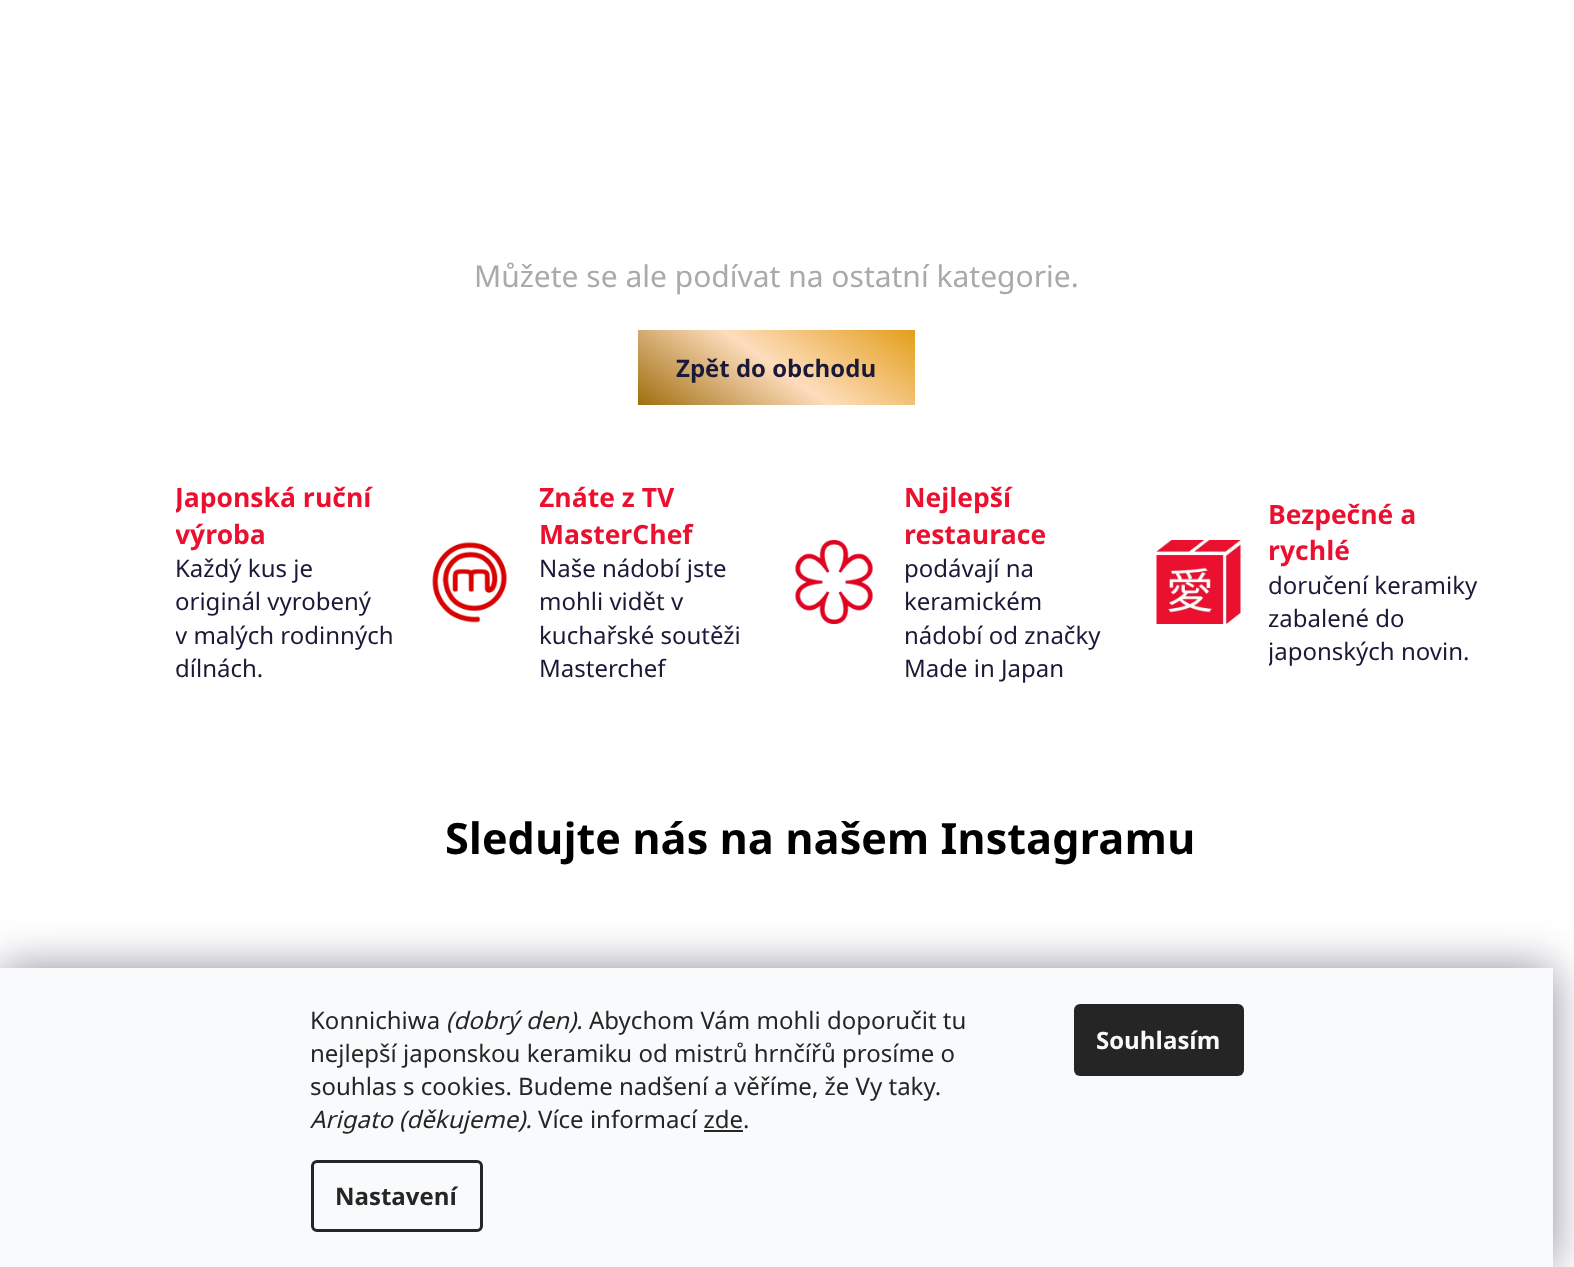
<svg xmlns="http://www.w3.org/2000/svg" width="1574" height="1267">
<defs>
<linearGradient id="g1" gradientUnits="userSpaceOnUse" x1="713" y1="458" x2="840" y2="277"><stop offset="0" stop-color="#9f6d0f"/><stop offset="0.5" stop-color="#feddbd"/><stop offset="1" stop-color="#e39e1a"/></linearGradient>
<clipPath id="clip1"><rect x="176" y="479" width="237" height="205"/></clipPath>
<clipPath id="clip2"><rect x="540" y="479" width="237" height="205"/></clipPath>
<clipPath id="clip3"><rect x="1269" y="495" width="237" height="173"/></clipPath>
</defs>
<rect width="100%" height="100%" fill="#fff"/>
<text x="474" y="287" style="font-family:Noto Sans;font-size:30px;fill:#aaa">Můžete se ale podívat na ostatní kategorie.</text>
<rect x="638" y="330" width="277" height="75" fill="url(#g1)"/>
<text x="676" y="377" style="font-family:Noto Sans;font-size:24px;font-weight:bold;fill:#1a1937">Zpět do obchodu</text>
<g clip-path="url(#clip1)">
<text x="175" y="507" style="font-family:Noto Sans;font-size:26.5px;font-weight:bold;fill:#ec1030">Japonská ruční</text>
<text x="175" y="544" style="font-family:Noto Sans;font-size:26.5px;font-weight:bold;fill:#ec1030">výroba</text>
</g>
<text x="175" y="577" style="font-family:Noto Sans;font-size:24px;fill:#1a1937">Každý kus je</text>
<text x="175" y="610" style="font-family:Noto Sans;font-size:24px;fill:#1a1937">originál vyrobený</text>
<g clip-path="url(#clip1)">
<text x="175" y="644" style="font-family:Noto Sans;font-size:24px;fill:#1a1937">v malých rodinných</text>
</g>
<text x="175" y="677" style="font-family:Noto Sans;font-size:24px;fill:#1a1937">dílnách.</text>
<image x="432" y="540" width="76" height="83" href="media/1.png"/>
<g clip-path="url(#clip2)">
<text x="539" y="507" style="font-family:Noto Sans;font-size:26.5px;font-weight:bold;fill:#ec1030">Znáte z TV</text>
</g>
<text x="539" y="544" style="font-family:Noto Sans;font-size:26.5px;font-weight:bold;fill:#ec1030">MasterChef</text>
<text x="539" y="577" style="font-family:Noto Sans;font-size:24px;fill:#1a1937">Naše nádobí jste</text>
<text x="539" y="610" style="font-family:Noto Sans;font-size:24px;fill:#1a1937">mohli vidět v</text>
<text x="539" y="644" style="font-family:Noto Sans;font-size:24px;fill:#1a1937">kuchařské soutěži</text>
<text x="539" y="677" style="font-family:Noto Sans;font-size:24px;fill:#1a1937">Masterchef</text>
<image x="795" y="540" width="78" height="84" href="media/2.png"/>
<text x="904" y="507" style="font-family:Noto Sans;font-size:26.5px;font-weight:bold;fill:#ec1030">Nejlepší</text>
<text x="904" y="544" style="font-family:Noto Sans;font-size:26.5px;font-weight:bold;fill:#ec1030">restaurace</text>
<text x="904" y="577" style="font-family:Noto Sans;font-size:24px;fill:#1a1937">podávají na</text>
<text x="904" y="610" style="font-family:Noto Sans;font-size:24px;fill:#1a1937">keramickém</text>
<text x="904" y="644" style="font-family:Noto Sans;font-size:24px;fill:#1a1937">nádobí od značky</text>
<text x="904" y="677" style="font-family:Noto Sans;font-size:24px;fill:#1a1937">Made in Japan</text>
<image x="1156" y="540" width="85" height="84" href="media/3.png"/>
<text x="1268" y="524" style="font-family:Noto Sans;font-size:26.5px;font-weight:bold;fill:#ec1030">Bezpečné a</text>
<text x="1268" y="560" style="font-family:Noto Sans;font-size:26.5px;font-weight:bold;fill:#ec1030">rychlé</text>
<text x="1268" y="594" style="font-family:Noto Sans;font-size:24px;fill:#1a1937">doručení keramiky</text>
<text x="1268" y="627" style="font-family:Noto Sans;font-size:24px;fill:#1a1937">zabalené do</text>
<g clip-path="url(#clip3)">
<text x="1268" y="660" style="font-family:Noto Sans;font-size:24px;fill:#1a1937">japonských novin.</text>
</g>
<text x="445" y="854" style="font-family:Noto Sans;font-size:43.25px;font-weight:bold;fill:#000">Sledujte nás na našem Instagramu</text>
<rect y="968" width="1553" height="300" fill="#1b193980" filter="blur(22.5px)"/>
<rect y="968" width="1553" height="299" fill="#f8fafb"/>
<text x="310" y="1029" style="font-family:Noto Sans;font-size:24px;fill:#252525">Konnichiwa</text>
<text x="446" y="1029" style="font-family:Noto Sans;font-size:24px;font-style:italic;fill:#252525">(dobrý den).</text>
<text x="589" y="1029" style="font-family:Noto Sans;font-size:24px;fill:#252525">Abychom Vám mohli doporučit tu</text>
<text x="310" y="1062" style="font-family:Noto Sans;font-size:24px;fill:#252525">nejlepší japonskou keramiku od mistrů hrnčířů prosíme o</text>
<text x="310" y="1095" style="font-family:Noto Sans;font-size:24px;fill:#252525">souhlas s cookies. Budeme nadšení a věříme, že Vy taky.</text>
<text x="310" y="1128" style="font-family:Noto Sans;font-size:24px;font-style:italic;fill:#252525">Arigato (děkujeme).</text>
<text x="538" y="1128" style="font-family:Noto Sans;font-size:24px;fill:#252525">Více informací zde.</text>
<rect x="704" y="1130" width="39" height="2" fill="#252525"/>
<rect x="312.5" y="1161.5" width="169" height="69" rx="4.5" fill="none" stroke="#252525" stroke-width="3"/>
<text x="335" y="1205" style="font-family:Noto Sans;font-size:24px;font-weight:bold;fill:#252525">Nastavení</text>
<rect x="1074" y="1004" width="170" height="72" rx="6" fill="#252525"/>
<text x="1096" y="1049" style="font-family:Noto Sans;font-size:24px;font-weight:bold;fill:#f8fafb">Souhlasím</text>
</svg>
